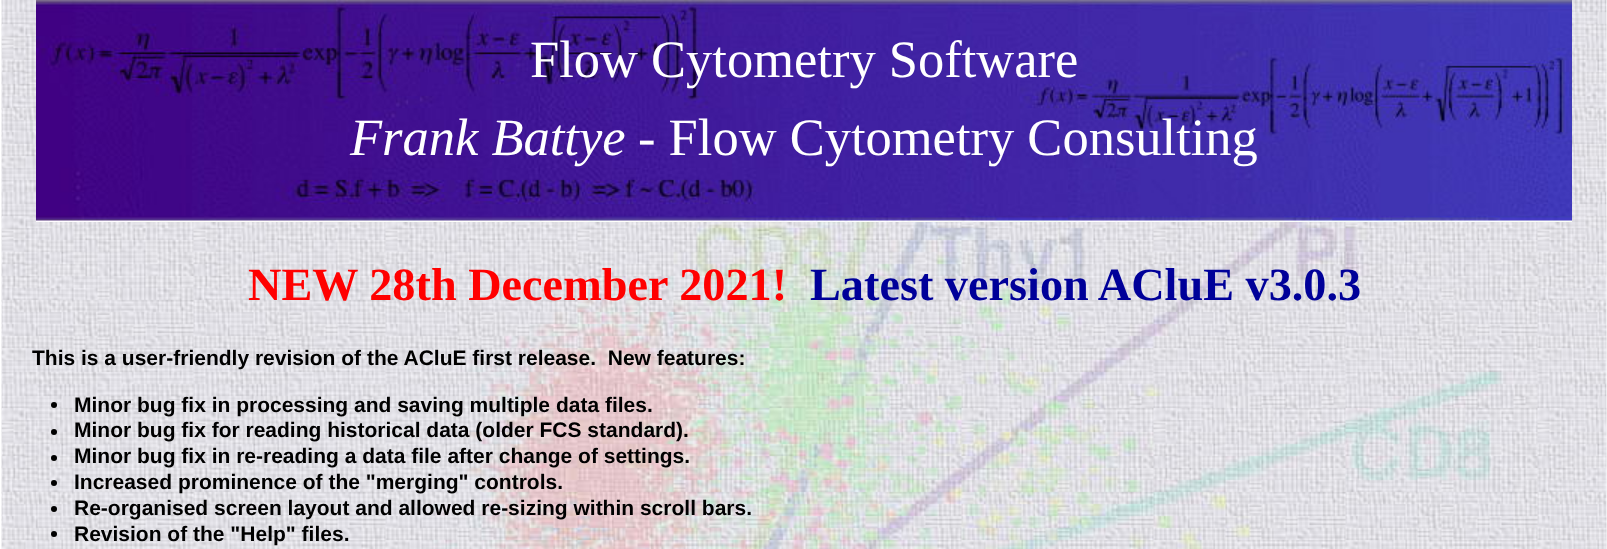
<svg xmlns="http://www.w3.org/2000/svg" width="1607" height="549">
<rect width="100%" height="100%" fill="#fff"/>
<image x="1" y="0" width="1606" height="549" href="media/1.png"/>
<image x="36" y="0" width="1536" height="222" href="media/2.png"/>
<text x="530" y="77" style="font-family:Liberation Serif;font-size:52.5px;fill:#fff">Flow Cytometry Software</text>
<text x="350" y="155" style="font-family:Liberation Serif;font-size:52.5px;font-style:italic;fill:#fff">Frank Battye</text>
<text x="638" y="155" style="font-family:Liberation Serif;font-size:52.5px;fill:#fff">- Flow Cytometry Consulting</text>
<text x="248" y="300" style="font-family:Liberation Serif;font-size:46.25px;font-weight:bold;fill:#f00">NEW 28th December 2021!</text>
<text x="810" y="300" style="font-family:Liberation Serif;font-size:46.25px;font-weight:bold;fill:#009">Latest version ACluE v3.0.3</text>
<text x="32" y="365" style="font-family:Liberation Sans;font-size:21px;font-weight:bold;fill:#000" xml:space="preserve">This is a user-friendly revision of the ACluE first release.  New features:</text>
<circle cx="54" cy="405" r="3" fill="#000"/>
<text x="74" y="412" style="font-family:Liberation Sans;font-size:21px;font-weight:bold;fill:#000">Minor bug fix in processing and saving multiple data files.</text>
<circle cx="54" cy="432" r="3" fill="#000"/>
<text x="74" y="437" style="font-family:Liberation Sans;font-size:21px;font-weight:bold;fill:#000">Minor bug fix for reading historical data (older FCS standard).</text>
<circle cx="54" cy="458" r="3" fill="#000"/>
<text x="74" y="463" style="font-family:Liberation Sans;font-size:21px;font-weight:bold;fill:#000">Minor bug fix in re-reading a data file after change of settings.</text>
<circle cx="54" cy="483" r="3" fill="#000"/>
<text x="74" y="489" style="font-family:Liberation Sans;font-size:21px;font-weight:bold;fill:#000">Increased prominence of the "merging" controls.</text>
<circle cx="54" cy="509" r="3" fill="#000"/>
<text x="74" y="515" style="font-family:Liberation Sans;font-size:21px;font-weight:bold;fill:#000">Re-organised screen layout and allowed re-sizing within scroll bars.</text>
<circle cx="54" cy="534" r="3" fill="#000"/>
<text x="74" y="541" style="font-family:Liberation Sans;font-size:21px;font-weight:bold;fill:#000">Revision of the "Help" files.</text>
</svg>
